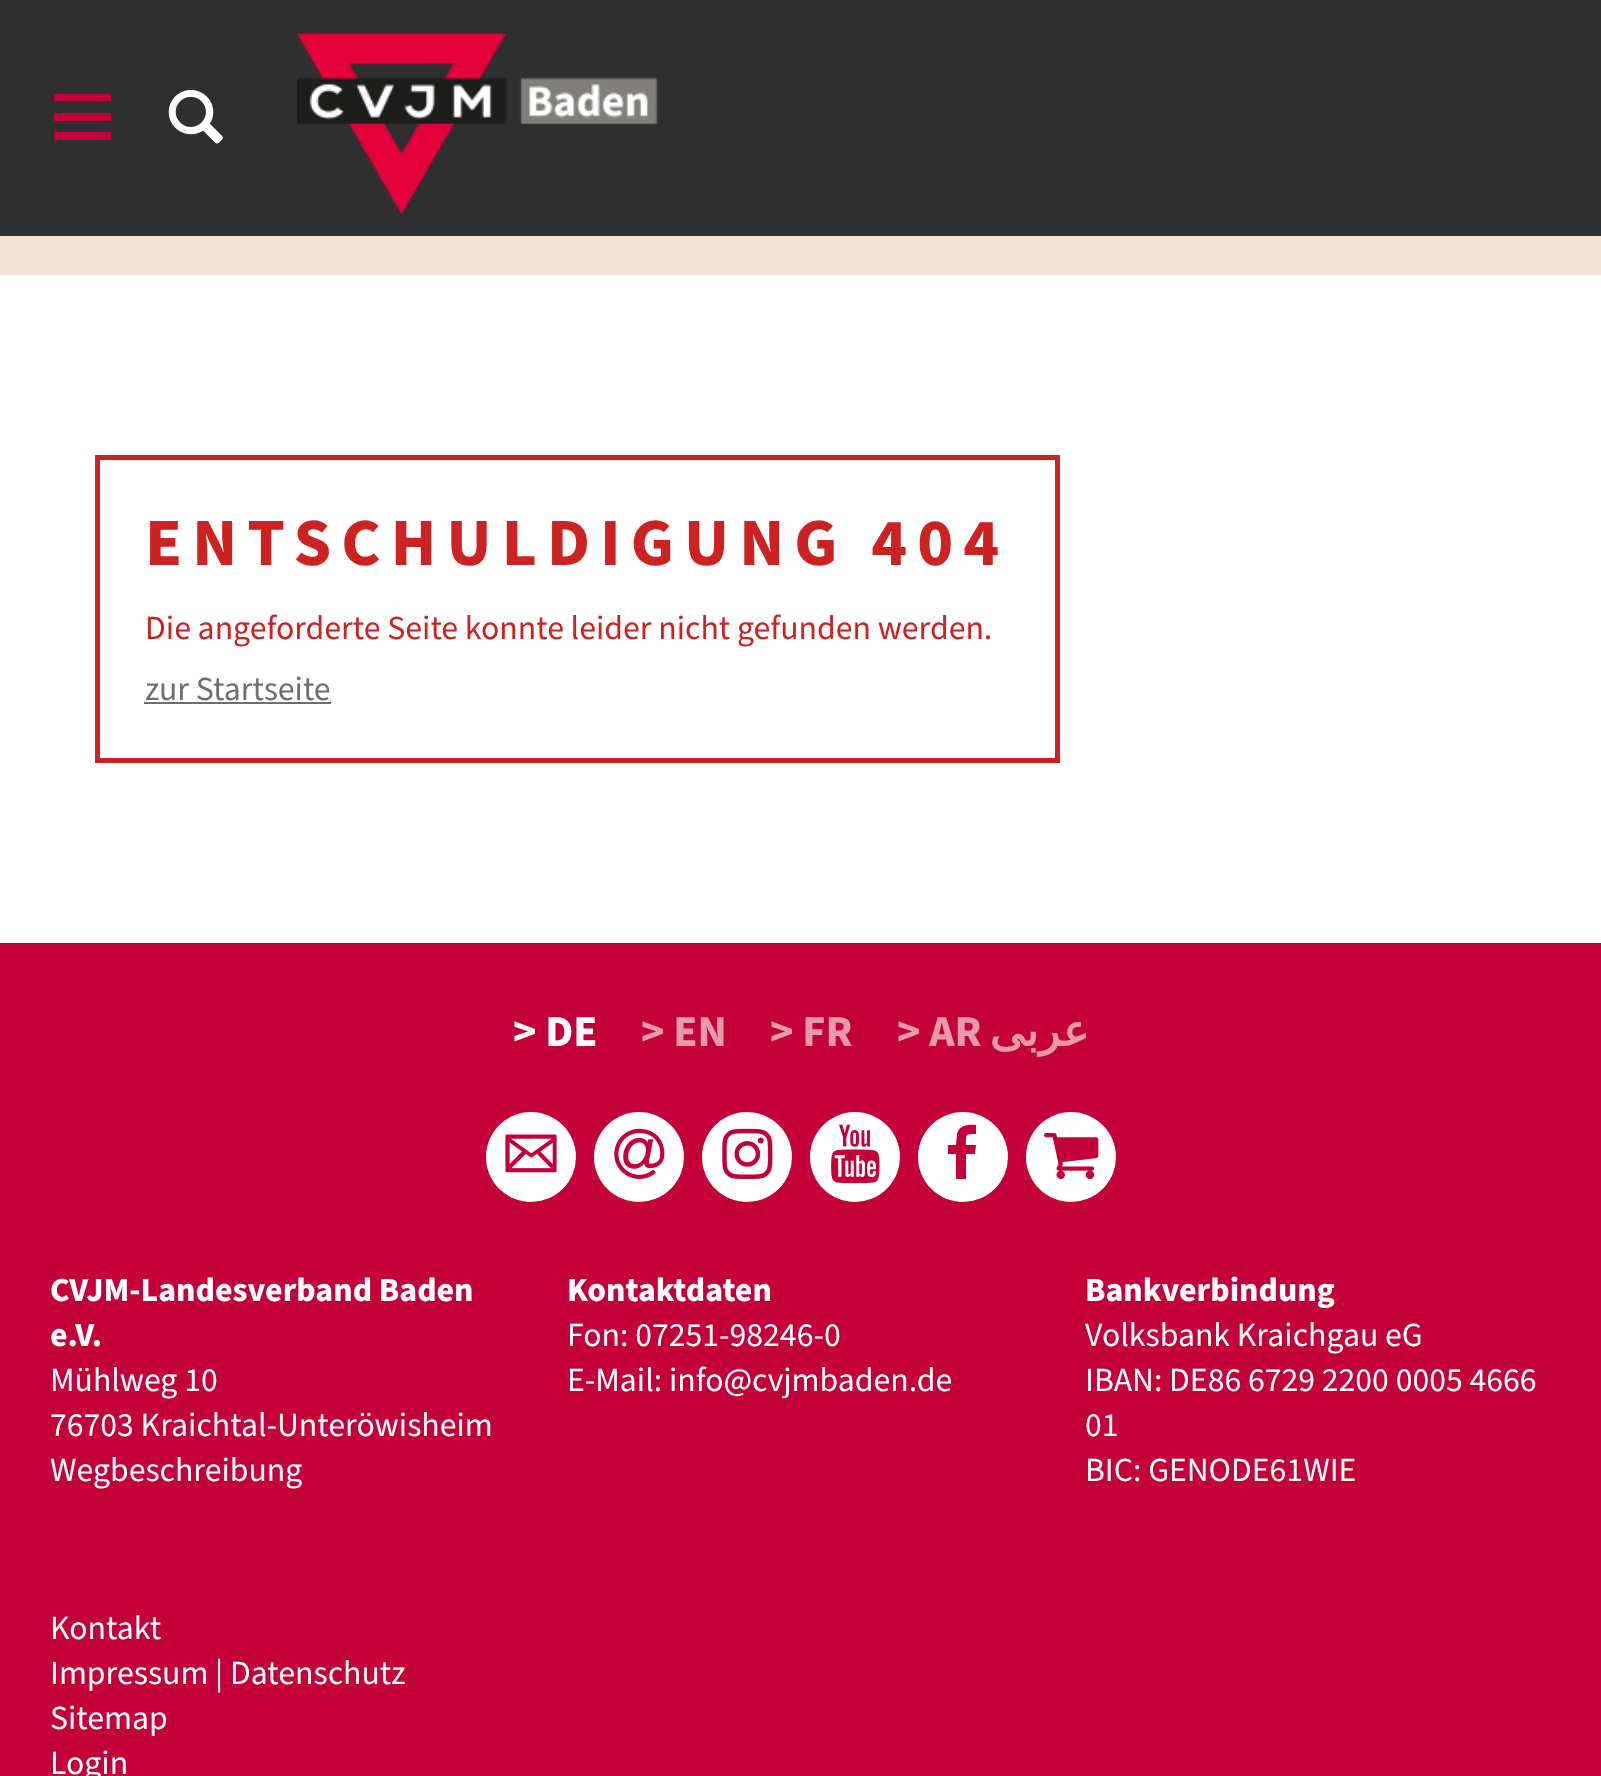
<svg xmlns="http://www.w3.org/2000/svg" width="1601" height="1776">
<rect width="100%" height="100%" fill="#c30039"/>
<rect width="1601" height="236" fill="#2f2f30"/>
<path d="M111 132v8h-57v-8zm-57-19h57v8h-57zm0-19h57v7h-57z" fill="#c30039"/>
<image x="168" y="90" width="55" height="54" href="media/1.png"/>
<image x="297" y="33" width="361" height="181" href="media/2.png"/>
<rect y="236" width="1601" height="39" fill="#f4e2d5"/>
<rect y="275" width="1601" height="668" fill="#fff"/>
<rect x="97.5" y="457.5" width="960" height="303" fill="none" stroke="#c22" stroke-width="5"/>
<text x="145" y="565" style="font-family:Source Sans Pro;font-size:67.5px;font-weight:bold;letter-spacing:10.1px;fill:#c22">ENTSCHULDIGUNG 404</text>
<text x="145" y="639" style="font-family:Source Sans Pro;font-size:33.75px;fill:#c22">Die angeforderte Seite konnte leider nicht gefunden werden.</text>
<text x="145" y="700" style="font-family:Source Sans Pro;font-size:33.75px;fill:#6d6e70">zur Startseite</text>
<rect x="144" y="702" width="187" height="2" fill="#6d6e70"/>
<text x="513" y="1046" style="font-family:Source Sans Pro;font-size:44px;font-weight:bold;fill:#fff">&gt; DE</text>
<text x="641" y="1046" style="font-family:Source Sans Pro;font-size:44px;font-weight:bold;fill:#e799b0">&gt; EN</text>
<text x="770" y="1046" style="font-family:Source Sans Pro;font-size:44px;font-weight:bold;fill:#e799b0">&gt; FR</text>
<text x="897" y="1046" style="font-family:Source Sans Pro;font-size:44px;font-weight:bold;fill:#e799b0">&gt; AR</text>
<text x="1089" y="1046" style="font-family:DejaVu Sans;font-size:44px;font-weight:bold;direction:rtl;fill:#e799b0">عربى</text>
<circle cx="531" cy="1157" r="45" fill="#fff"/>
<image x="505" y="1134" width="52" height="39" href="media/3.png"/>
<circle cx="639" cy="1157" r="45" fill="#fff"/>
<image x="614" y="1128" width="51" height="51" href="media/4.png"/>
<circle cx="747" cy="1157" r="45" fill="#fff"/>
<image x="722" y="1128" width="51" height="51" href="media/5.png"/>
<circle cx="855" cy="1157" r="45" fill="#fff"/>
<image x="831" y="1124" width="49" height="60" href="media/6.png"/>
<circle cx="963" cy="1157" r="45" fill="#fff"/>
<path d="M976 1125v9c-11 0-10 0-10 11h10l-1 9h-9v25h-10v-25h-8v-9h8l1-11c2-9 11-10 19-9z" fill="#c30039"/>
<circle cx="1071" cy="1157" r="45" fill="#fff"/>
<image x="1044" y="1133" width="55" height="46" href="media/7.png"/>
<text x="50" y="1301" style="font-family:Source Sans Pro;font-size:33.75px;font-weight:bold;fill:#fff">CVJM-Landesverband Baden</text>
<text x="50" y="1346" style="font-family:Source Sans Pro;font-size:33.75px;font-weight:bold;fill:#fff">e.V.</text>
<text x="50" y="1391" style="font-family:Source Sans Pro;font-size:33.75px;fill:#fff">Mühlweg 10</text>
<text x="50" y="1436" style="font-family:Source Sans Pro;font-size:33.75px;fill:#fff">76703 Kraichtal-Unteröwisheim</text>
<text x="50" y="1481" style="font-family:Source Sans Pro;font-size:33.75px;fill:#fff">Wegbeschreibung</text>
<text x="567" y="1301" style="font-family:Source Sans Pro;font-size:33.75px;font-weight:bold;fill:#fff">Kontaktdaten</text>
<text x="567" y="1346" style="font-family:Source Sans Pro;font-size:33.75px;fill:#fff">Fon: 07251-98246-0</text>
<text x="567" y="1391" style="font-family:Source Sans Pro;font-size:33.75px;fill:#fff">E-Mail: info@cvjmbaden.de</text>
<text x="1085" y="1301" style="font-family:Source Sans Pro;font-size:33.75px;font-weight:bold;fill:#fff">Bankverbindung</text>
<text x="1085" y="1346" style="font-family:Source Sans Pro;font-size:33.75px;fill:#fff">Volksbank Kraichgau eG</text>
<text x="1085" y="1391" style="font-family:Source Sans Pro;font-size:33.75px;fill:#fff">IBAN: DE86 6729 2200 0005 4666</text>
<text x="1085" y="1436" style="font-family:Source Sans Pro;font-size:33.75px;fill:#fff">01</text>
<text x="1085" y="1481" style="font-family:Source Sans Pro;font-size:33.75px;fill:#fff">BIC: GENODE61WIE</text>
<text x="50" y="1639" style="font-family:Source Sans Pro;font-size:33.75px;fill:#fff">Kontakt</text>
<text x="50" y="1684" style="font-family:Source Sans Pro;font-size:33.75px;fill:#fff">Impressum | Datenschutz</text>
<text x="50" y="1729" style="font-family:Source Sans Pro;font-size:33.75px;fill:#fff">Sitemap</text>
<text x="50" y="1774" style="font-family:Source Sans Pro;font-size:33.75px;fill:#fff">Login</text>
</svg>
